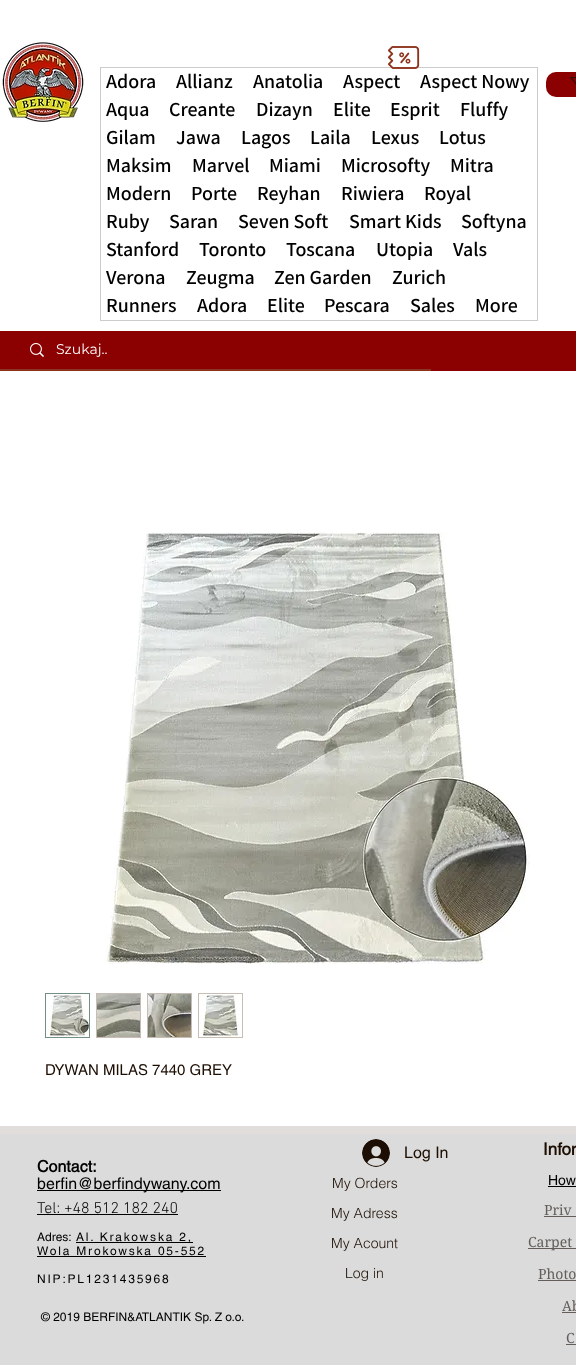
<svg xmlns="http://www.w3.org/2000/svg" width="576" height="1365">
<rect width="100%" height="100%" fill="#fff"/>
<image x="2" y="42" width="82" height="80" href="media/1.png"/>
<rect x="100.5" y="67.5" width="437" height="253" fill="none" stroke="#ccc"/>
<image x="387" y="46" width="33" height="23" href="media/2.png"/>
<text x="106" y="88" style="font-family:Assistant;font-size:20px;font-weight:600;fill:#000">Adora</text>
<text x="176" y="88" style="font-family:Assistant;font-size:20px;font-weight:600;fill:#000">Allianz</text>
<text x="253" y="88" style="font-family:Assistant;font-size:20px;font-weight:600;fill:#000">Anatolia</text>
<text x="343" y="88" style="font-family:Assistant;font-size:20px;font-weight:600;fill:#000">Aspect</text>
<text x="420" y="88" style="font-family:Assistant;font-size:20px;font-weight:600;fill:#000">Aspect Nowy</text>
<text x="106" y="116" style="font-family:Assistant;font-size:20px;font-weight:600;fill:#000">Aqua</text>
<text x="169" y="116" style="font-family:Assistant;font-size:20px;font-weight:600;fill:#000">Creante</text>
<text x="256" y="116" style="font-family:Assistant;font-size:20px;font-weight:600;fill:#000">Dizayn</text>
<text x="333" y="116" style="font-family:Assistant;font-size:20px;font-weight:600;fill:#000">Elite</text>
<text x="390" y="116" style="font-family:Assistant;font-size:20px;font-weight:600;fill:#000">Esprit</text>
<text x="460" y="116" style="font-family:Assistant;font-size:20px;font-weight:600;fill:#000">Fluffy</text>
<text x="106" y="144" style="font-family:Assistant;font-size:20px;font-weight:600;fill:#000">Gilam</text>
<text x="176" y="144" style="font-family:Assistant;font-size:20px;font-weight:600;fill:#000">Jawa</text>
<text x="241" y="144" style="font-family:Assistant;font-size:20px;font-weight:600;fill:#000">Lagos</text>
<text x="310" y="144" style="font-family:Assistant;font-size:20px;font-weight:600;fill:#000">Laila</text>
<text x="371" y="144" style="font-family:Assistant;font-size:20px;font-weight:600;fill:#000">Lexus</text>
<text x="439" y="144" style="font-family:Assistant;font-size:20px;font-weight:600;fill:#000">Lotus</text>
<text x="106" y="172" style="font-family:Assistant;font-size:20px;font-weight:600;fill:#000">Maksim</text>
<text x="192" y="172" style="font-family:Assistant;font-size:20px;font-weight:600;fill:#000">Marvel</text>
<text x="269" y="172" style="font-family:Assistant;font-size:20px;font-weight:600;fill:#000">Miami</text>
<text x="341" y="172" style="font-family:Assistant;font-size:20px;font-weight:600;fill:#000">Microsofty</text>
<text x="450" y="172" style="font-family:Assistant;font-size:20px;font-weight:600;fill:#000">Mitra</text>
<text x="106" y="200" style="font-family:Assistant;font-size:20px;font-weight:600;fill:#000">Modern</text>
<text x="191" y="200" style="font-family:Assistant;font-size:20px;font-weight:600;fill:#000">Porte</text>
<text x="257" y="200" style="font-family:Assistant;font-size:20px;font-weight:600;fill:#000">Reyhan</text>
<text x="341" y="200" style="font-family:Assistant;font-size:20px;font-weight:600;fill:#000">Riwiera</text>
<text x="424" y="200" style="font-family:Assistant;font-size:20px;font-weight:600;fill:#000">Royal</text>
<text x="106" y="228" style="font-family:Assistant;font-size:20px;font-weight:600;fill:#000">Ruby</text>
<text x="169" y="228" style="font-family:Assistant;font-size:20px;font-weight:600;fill:#000">Saran</text>
<text x="238" y="228" style="font-family:Assistant;font-size:20px;font-weight:600;fill:#000">Seven Soft</text>
<text x="349" y="228" style="font-family:Assistant;font-size:20px;font-weight:600;fill:#000">Smart Kids</text>
<text x="461" y="228" style="font-family:Assistant;font-size:20px;font-weight:600;fill:#000">Softyna</text>
<text x="106" y="256" style="font-family:Assistant;font-size:20px;font-weight:600;fill:#000">Stanford</text>
<text x="199" y="256" style="font-family:Assistant;font-size:20px;font-weight:600;fill:#000">Toronto</text>
<text x="286" y="256" style="font-family:Assistant;font-size:20px;font-weight:600;fill:#000">Toscana</text>
<text x="376" y="256" style="font-family:Assistant;font-size:20px;font-weight:600;fill:#000">Utopia</text>
<text x="453" y="256" style="font-family:Assistant;font-size:20px;font-weight:600;fill:#000">Vals</text>
<text x="106" y="284" style="font-family:Assistant;font-size:20px;font-weight:600;fill:#000">Verona</text>
<text x="186" y="284" style="font-family:Assistant;font-size:20px;font-weight:600;fill:#000">Zeugma</text>
<text x="274" y="284" style="font-family:Assistant;font-size:20px;font-weight:600;fill:#000">Zen Garden</text>
<text x="392" y="284" style="font-family:Assistant;font-size:20px;font-weight:600;fill:#000">Zurich</text>
<text x="106" y="312" style="font-family:Assistant;font-size:20px;font-weight:600;fill:#000">Runners</text>
<text x="197" y="312" style="font-family:Assistant;font-size:20px;font-weight:600;fill:#000">Adora</text>
<text x="267" y="312" style="font-family:Assistant;font-size:20px;font-weight:600;fill:#000">Elite</text>
<text x="324" y="312" style="font-family:Assistant;font-size:20px;font-weight:600;fill:#000">Pescara</text>
<text x="410" y="312" style="font-family:Assistant;font-size:20px;font-weight:600;fill:#000">Sales</text>
<text x="475" y="312" style="font-family:Assistant;font-size:20px;font-weight:600;fill:#000">More</text>
<rect x="546" y="72" width="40" height="25" rx="10" fill="#8b0000"/>
<image x="570" y="77" width="6" height="8" href="media/3.png"/>
<rect y="331" width="576" height="40" fill="#8b0000"/>
<rect y="369" width="431" height="2" fill="#8c331c"/>
<image x="30" y="343" width="14" height="14" href="media/4.png"/>
<text x="56" y="354" style="font-family:Montserrat;font-size:14px;fill:#fff">Szukaj..</text>
<image x="106" y="532" width="424" height="432" href="media/5.png"/>
<rect x="45.5" y="993.5" width="44" height="44" fill="none" stroke="#728f83"/>
<image x="46" y="994" width="43" height="43" href="media/6.png"/>
<rect x="96" y="993" width="45" height="45" fill="#c8bdb4"/>
<image x="97" y="994" width="43" height="43" href="media/7.png"/>
<rect x="147" y="993" width="45" height="45" fill="#c8bdb4"/>
<image x="148" y="994" width="43" height="43" href="media/8.png"/>
<rect x="198" y="993" width="45" height="45" fill="#c8bdb4"/>
<image x="199" y="994" width="43" height="43" href="media/9.png"/>
<text x="45" y="1075" style="font-family:helvetica;font-size:15px;fill:#1d0e03">DYWAN MILAS 7440 GREY</text>
<rect y="1126" width="576" height="8" fill="#e0dddb"/>
<rect y="1134" width="576" height="231" fill="#dbdbdb"/>
<image x="362" y="1139" width="28" height="28" href="media/10.png"/>
<text x="404" y="1158" style="font-family:helvetica;font-size:16px;fill:#1d0e03">Log In</text>
<text x="543" y="1155" style="font-family:helvetica;font-size:17px;font-weight:bold;fill:#1d0e03">Infor</text>
<text x="37" y="1172" style="font-family:helvetica;font-size:16px;font-weight:bold;fill:#000">Contact:</text>
<rect x="37" y="1190" width="184" height="1" fill="#000"/>
<text x="37" y="1189" style="font-family:helvetica;font-size:16px;fill:#000">berfin@berfindywany.com</text>
<text x="37" y="1213" style="font-family:'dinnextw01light';font-size:16px;font-weight:300;fill:#000">Tel: +48 512 182 240</text>
<rect x="37" y="1214" width="141" height="1" fill="#000"/>
<text x="37" y="1241" style="font-family:helvetica;font-size:12px;fill:#000">Adres:</text>
<rect x="76" y="1242" width="117" height="1" fill="#000"/>
<text x="76" y="1241" style="font-family:helvetica;font-size:12px;letter-spacing:1.8px;fill:#000">Al. Krakowska 2,</text>
<text x="37" y="1255" style="font-family:helvetica;font-size:12px;letter-spacing:1.8px;fill:#000">Wola Mrokowska 05-552</text>
<rect x="37" y="1256" width="169" height="1" fill="#000"/>
<text x="37" y="1283" style="font-family:helvetica;font-size:12px;letter-spacing:1.8px;fill:#000">NIP:PL1231435968</text>
<text x="41" y="1321" style="font-family:helvetica;font-size:12px;fill:#000">© 2019 BERFIN&amp;ATLANTIK Sp. Z o.o.</text>
<text x="332" y="1188" style="font-family:helvetica;font-size:14px;font-weight:300;fill:#1d0e03">My Orders</text>
<text x="331" y="1218" style="font-family:helvetica;font-size:14px;font-weight:300;fill:#1d0e03">My Adress</text>
<text x="331" y="1248" style="font-family:helvetica;font-size:14px;font-weight:300;fill:#1d0e03">My Acount</text>
<text x="345" y="1278" style="font-family:helvetica;font-size:14px;font-weight:300;fill:#1d0e03">Log in</text>
<text x="548" y="1185" style="font-family:helvetica;font-size:14px;fill:#000">How</text>
<rect x="548" y="1186" width="28" height="1" fill="#000"/>
<text x="544" y="1215" style="font-family:'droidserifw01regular';font-size:14px;fill:#645e5a">Priv</text>
<rect x="544" y="1216" width="32" height="1" fill="#645e5a"/>
<rect x="528" y="1248" width="48" height="1" fill="#645e5a"/>
<text x="528" y="1247" style="font-family:'droidserifw01regular';font-size:14px;fill:#645e5a">Carpet</text>
<text x="538" y="1279" style="font-family:'droidserifw01regular';font-size:14px;fill:#645e5a">Photo</text>
<rect x="538" y="1280" width="38" height="1" fill="#645e5a"/>
<text x="562" y="1311" style="font-family:'droidserifw01regular';font-size:14px;fill:#645e5a">Ab</text>
<rect x="562" y="1312" width="14" height="1" fill="#645e5a"/>
<text x="566" y="1343" style="font-family:'droidserifw01regular';font-size:14px;fill:#645e5a">C</text>
<rect x="566" y="1344" width="10" height="1" fill="#645e5a"/>
</svg>
